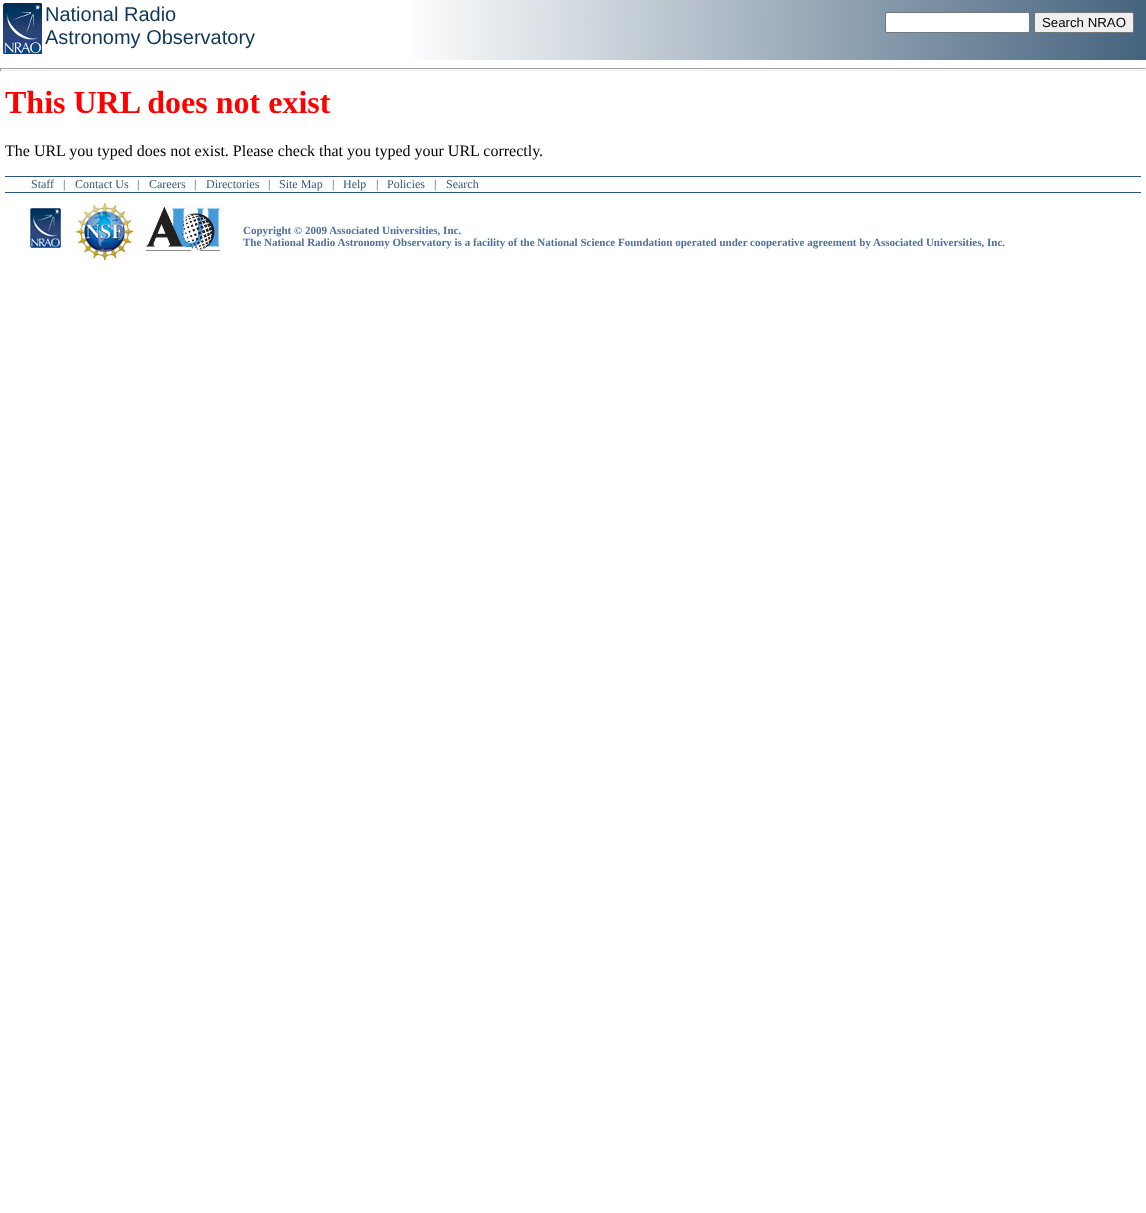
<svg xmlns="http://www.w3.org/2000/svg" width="1146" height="1213">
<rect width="100%" height="100%" fill="#fff"/>
<image x="413" y="0" width="733" height="60" href="media/1.png"/>
<image x="3" y="3" width="39" height="51" href="media/2.png"/>
<text x="45" y="21" style="font-family:Liberation Sans;font-size:20px;fill:#0f3658">National Radio</text>
<text x="45" y="44" style="font-family:Liberation Sans;font-size:20px;fill:#0f3658">Astronomy Observatory</text>
<rect x="885.5" y="12.5" width="144" height="20" rx="1.5" fill="#fff" stroke="#767676"/>
<rect x="1034.5" y="12.5" width="99" height="20" rx="1.5" fill="#efefef" stroke="#767676"/>
<text x="1042" y="27" style="font-family:Liberation Sans;font-size:13.25px;fill:#000">Search NRAO</text>
<rect y="68" width="1146" height="1" fill="#9f9f9f"/>
<rect x="1145" y="68" width="1" height="3" fill="#eee"/>
<rect y="70" width="1146" height="1" fill="#eee"/>
<rect y="68" width="1" height="3" fill="#9f9f9f"/>
<text x="5" y="113" style="font-family:Liberation Serif;font-size:32px;font-weight:bold;fill:#f00">This URL does not exist</text>
<text x="5" y="156" style="font-family:Liberation Serif;font-size:16px;fill:#000">The URL you typed does not exist. Please check that you typed your URL correctly.</text>
<rect x="5" y="176" width="1136" height="1" fill="#26547d"/>
<text x="31" y="188" style="font-family:Liberation Serif;font-size:12px;fill:#375774">Staff</text>
<text x="63" y="188" style="font-family:Liberation Serif;font-size:12px;fill:#375774">|</text>
<text x="75" y="188" style="font-family:Liberation Serif;font-size:12px;fill:#375774">Contact Us</text>
<text x="137" y="188" style="font-family:Liberation Serif;font-size:12px;fill:#375774">|</text>
<text x="149" y="188" style="font-family:Liberation Serif;font-size:12px;fill:#375774">Careers</text>
<text x="194" y="188" style="font-family:Liberation Serif;font-size:12px;fill:#375774">|</text>
<text x="206" y="188" style="font-family:Liberation Serif;font-size:12px;fill:#375774">Directories</text>
<text x="268" y="188" style="font-family:Liberation Serif;font-size:12px;fill:#375774">|</text>
<text x="279" y="188" style="font-family:Liberation Serif;font-size:12px;fill:#375774">Site Map</text>
<text x="332" y="188" style="font-family:Liberation Serif;font-size:12px;fill:#375774">|</text>
<text x="343" y="188" style="font-family:Liberation Serif;font-size:12px;fill:#375774">Help</text>
<text x="376" y="188" style="font-family:Liberation Serif;font-size:12px;fill:#375774">|</text>
<text x="387" y="188" style="font-family:Liberation Serif;font-size:12px;fill:#375774">Policies</text>
<text x="434" y="188" style="font-family:Liberation Serif;font-size:12px;fill:#375774">|</text>
<text x="446" y="188" style="font-family:Liberation Serif;font-size:12px;fill:#375774">Search</text>
<rect x="5" y="192" width="1136" height="1" fill="#26547d"/>
<image x="25" y="208" width="40" height="40" href="media/3.png"/>
<image x="76" y="203" width="57" height="57" href="media/4.png"/>
<image x="143" y="204" width="80" height="48" href="media/5.png"/>
<text x="243" y="234" style="font-family:Liberation Serif;font-size:11px;font-weight:bold;fill:#516f9c">Copyright © 2009 Associated Universities, Inc.</text>
<text x="243" y="246" style="font-family:Liberation Serif;font-size:11px;font-weight:bold;fill:#516f9c">The National Radio Astronomy Observatory is a facility of the National Science Foundation operated under cooperative agreement by Associated Universities, Inc.</text>
</svg>
